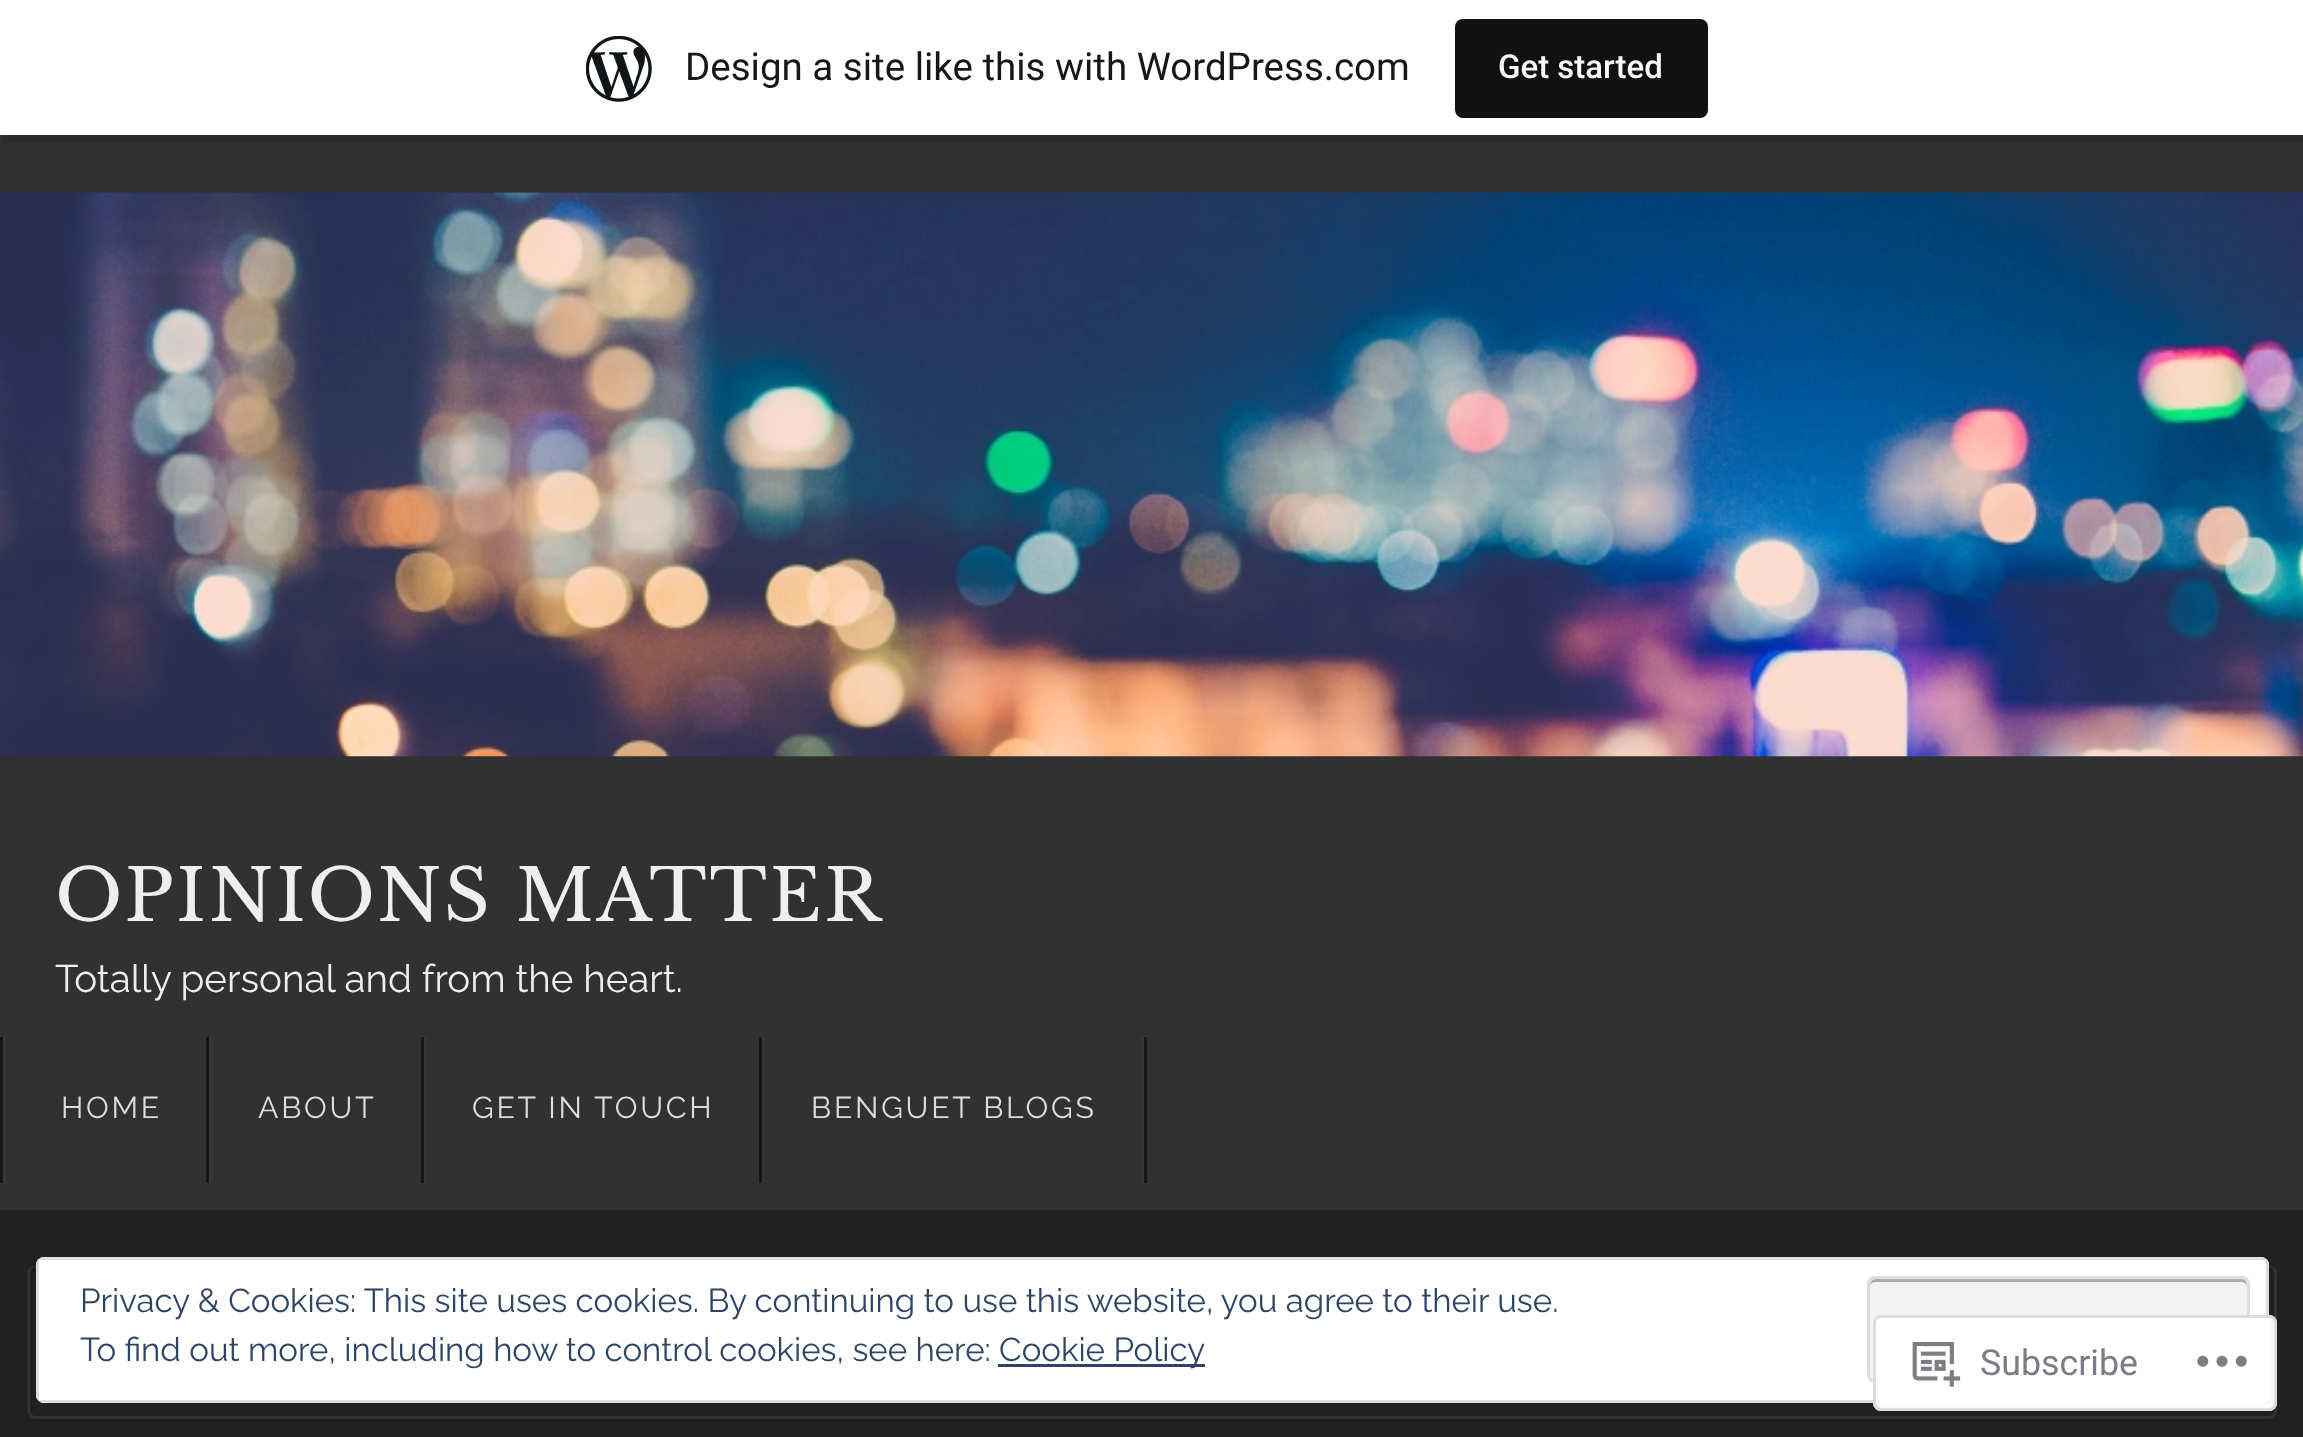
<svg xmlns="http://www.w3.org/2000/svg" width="2303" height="1437">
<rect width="100%" height="100%" fill="#212121"/>
<rect y="135" width="2303" height="1075" fill="#313131"/>
<path d="M3 135v8h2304v-135h-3v127z" fill="#2c2c2c"/>
<rect width="2303" height="135" fill="#fff"/>
<image x="586" y="36" width="66" height="66" href="media/1.png"/>
<text x="685" y="80" style="font-family:Roboto;font-size:38.5px;fill:#171717">Design a site like this with WordPress.com</text>
<rect x="1455" y="19" width="253" height="99" rx="8" fill="#111"/>
<text x="1498" y="78" style="font-family:Roboto;font-size:33px;font-weight:500;fill:#f6f7f7">Get started</text>
<image x="0" y="192" width="2303" height="565" href="media/2.png"/>
<text x="55" y="921" style="font-family:Libre Baskerville;font-size:71.5px;letter-spacing:2.75px;fill:#eee">OPINIONS MATTER</text>
<text x="55" y="992" style="font-family:Raleway;font-size:38.5px;fill:#eee">Totally personal and from the heart.</text>
<rect y="1037" width="3" height="146" fill="#161616"/>
<rect x="3" y="1037" width="3" height="146" fill="#363636"/>
<text x="61" y="1118" style="font-family:Raleway;font-size:30.25px;letter-spacing:2.75px;fill:#ddd">HOME</text>
<rect x="206" y="1037" width="3" height="146" fill="#161616"/>
<rect x="209" y="1037" width="3" height="146" fill="#363636"/>
<text x="258" y="1118" style="font-family:Raleway;font-size:30.25px;letter-spacing:2.75px;fill:#ddd">ABOUT</text>
<rect x="421" y="1037" width="3" height="146" fill="#161616"/>
<rect x="424" y="1037" width="3" height="146" fill="#363636"/>
<text x="472" y="1118" style="font-family:Raleway;font-size:30.25px;letter-spacing:2.75px;fill:#ddd">GET IN TOUCH</text>
<rect x="1144" y="1037" width="3" height="146" fill="#161616"/>
<rect x="759" y="1037" width="3" height="146" fill="#161616"/>
<rect x="1141" y="1037" width="3" height="146" fill="#363636"/>
<rect x="762" y="1037" width="3" height="146" fill="#363636"/>
<text x="811" y="1118" style="font-family:Raleway;font-size:30.25px;letter-spacing:2.75px;fill:#ddd">BENGUET BLOGS</text>
<path d="M36 1273h2233c1 0 3 1 3 3v138v1c1-1 2-3 2-5v-136c0-3-3-6-6-6h-2232c-3 0-6 3-6 6v136c0 3 3 6 6 6c-2 0-3-1-3-2v-138c0-2 1-3 3-3z" fill="#1e1e1e"/>
<path d="M31 1268.5c1-1.5 3-2 5-2h2233c1.5 0 3.5 .5 4.5 2" fill="none" stroke="#292929" stroke-width="2.8"/>
<path d="M2273.5 1268.5c1.5 1 2 3 2 4.5v138c0 1.5-.5 3.5-2 4.5c-1 1.5-3 2-4.5 2h-2233c-2 0-4-.5-5-2c-1.5-1-2-3-2-4.5v-138c0-1.5 .5-3.5 2-4.5" fill="none" stroke="#333" stroke-width="2.8"/>
<rect x="36" y="1257" width="2233" height="146" rx="8" fill="#fff"/>
<path d="M44 1257c-4 0-8 4-8 8v130c0 4 4 8 8 8h2217c4 0 8-4 8-8v-130c0-4-4-8-8-8zm-5 3v140h2227v-140z" fill="#dedede" fill-rule="evenodd"/>
<text x="80" y="1312" style="font-family:Raleway;font-size:33px;fill:#2e4467">Privacy &amp; Cookies: This site uses cookies. By continuing to use this website, you agree to their use.</text>
<rect x="1867" y="1276" width="383" height="107" rx="8" fill="#f3f3f3"/>
<path d="M1876 1282h365c3 0 6 2 6 5c0-4-1-8-6-8h-365c-5 0-6 4-6 8c0-3 2-5 6-5z" fill="#aaa"/>
<rect x="1868.5" y="1277.5" width="380" height="104" rx="6.5" fill="none" stroke="#dedede" stroke-width="3"/>
<text x="80" y="1361" style="font-family:Raleway;font-size:33px;fill:#2e4467">To find out more, including how to control cookies, see here:</text>
<rect x="998" y="1364" width="207" height="3" fill="#2e4467"/>
<text x="999" y="1361" style="font-family:Raleway;font-size:33px;fill:#2e4467">Cookie Policy</text>
<rect x="1873" y="1315" width="404" height="96" rx="8" fill="#fffffffa"/>
<rect x="1874.5" y="1316.5" width="401" height="93" rx="6.5" fill="none" stroke="#dcdcdefa" stroke-width="3"/>
<image x="1912" y="1342" width="49" height="45" href="media/3.png"/>
<text x="1980" y="1375" style="font-family:Roboto;font-size:35.75px;fill:#7a7e84">Subscribe</text>
<image x="2197" y="1355" width="50" height="12" href="media/4.png"/>
</svg>
